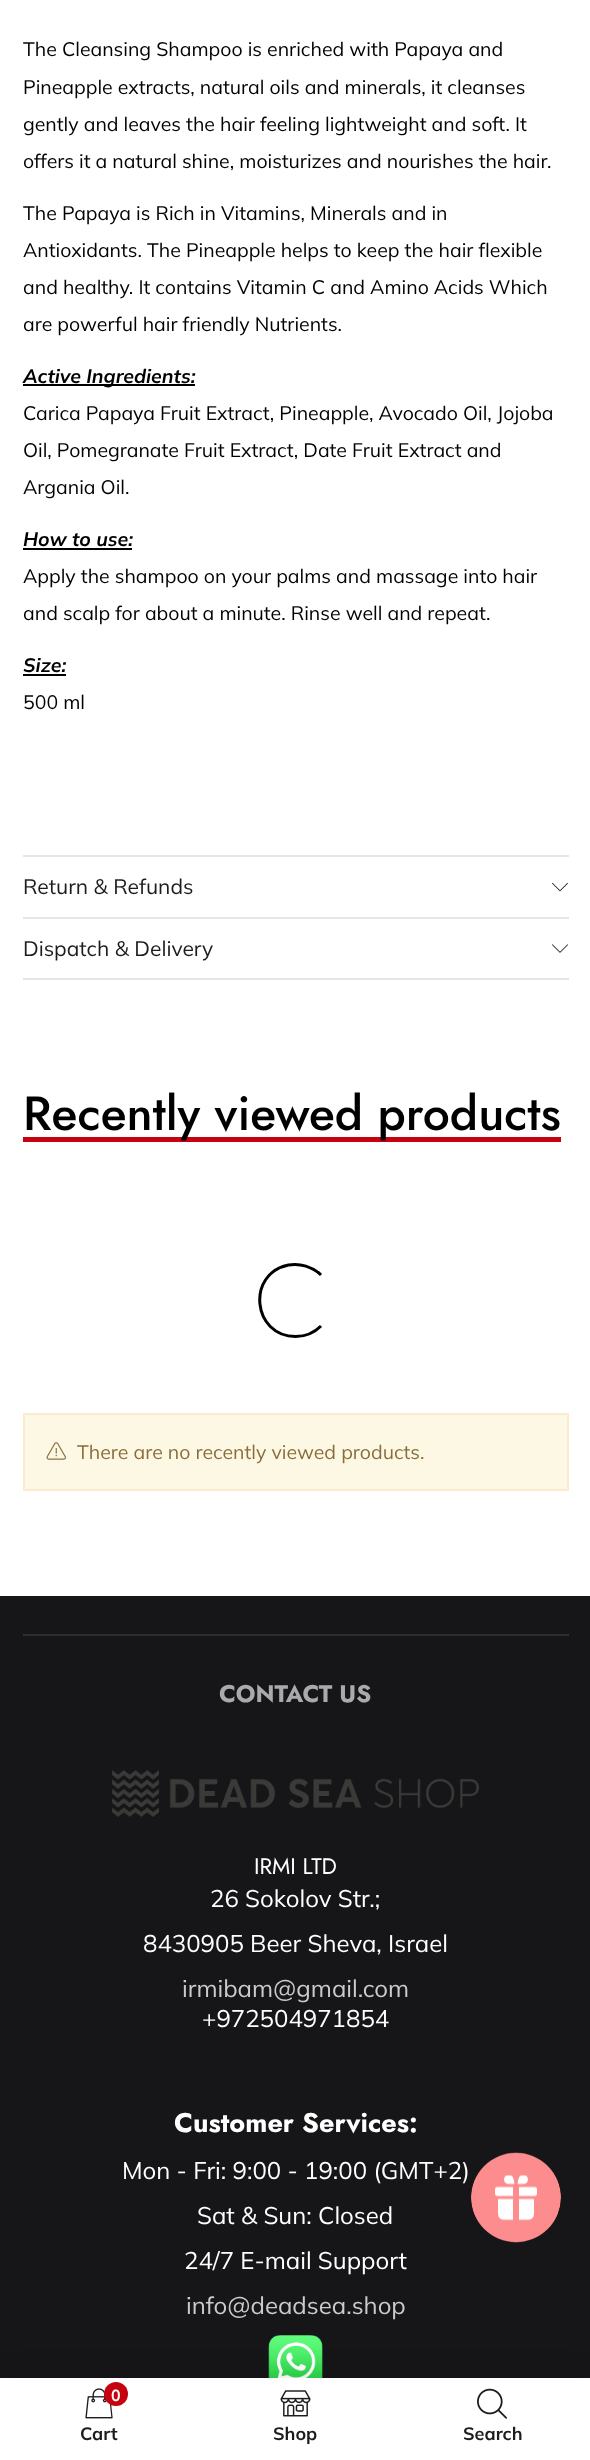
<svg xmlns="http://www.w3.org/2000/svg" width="590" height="2460">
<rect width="100%" height="100%" fill="#fff"/>
<rect x="23" y="855" width="546" height="2" fill="#e6e6e6"/>
<text x="23" y="56" style="font-family:Muli;font-size:19.5px;fill:#000">The Cleansing Shampoo is enriched with Papaya and</text>
<text x="23" y="94" style="font-family:Muli;font-size:19.5px;fill:#000">Pineapple extracts, natural oils and minerals, it cleanses</text>
<text x="23" y="131" style="font-family:Muli;font-size:19.5px;fill:#000">gently and leaves the hair feeling lightweight and soft. It</text>
<text x="23" y="168" style="font-family:Muli;font-size:19.5px;fill:#000">offers it a natural shine, moisturizes and nourishes the hair.</text>
<text x="23" y="220" style="font-family:Muli;font-size:19.5px;fill:#000">The Papaya is Rich in Vitamins, Minerals and in</text>
<text x="23" y="257" style="font-family:Muli;font-size:19.5px;fill:#000">Antioxidants. The Pineapple helps to keep the hair flexible</text>
<text x="23" y="294" style="font-family:Muli;font-size:19.5px;fill:#000">and healthy. It contains Vitamin C and Amino Acids Which</text>
<text x="23" y="331" style="font-family:Muli;font-size:19.5px;fill:#000">are powerful hair friendly Nutrients.</text>
<rect x="23" y="384" width="172" height="2" fill="#000"/>
<text x="23" y="383" style="font-family:Muli;font-size:19.5px;font-weight:bold;font-style:italic;fill:#000">Active Ingredients:</text>
<text x="23" y="420" style="font-family:Muli;font-size:19.5px;fill:#000">Carica Papaya Fruit Extract, Pineapple, Avocado Oil, Jojoba</text>
<text x="23" y="457" style="font-family:Muli;font-size:19.5px;fill:#000">Oil, Pomegranate Fruit Extract, Date Fruit Extract and</text>
<text x="23" y="494" style="font-family:Muli;font-size:19.5px;fill:#000">Argania Oil.</text>
<text x="23" y="546" style="font-family:Muli;font-size:19.5px;font-weight:bold;font-style:italic;fill:#000">How to use:</text>
<rect x="23" y="548" width="109" height="2" fill="#000"/>
<text x="23" y="583" style="font-family:Muli;font-size:19.5px;fill:#000">Apply the shampoo on your palms and massage into hair</text>
<text x="23" y="620" style="font-family:Muli;font-size:19.5px;fill:#000">and scalp for about a minute. Rinse well and repeat.</text>
<text x="23" y="672" style="font-family:Muli;font-size:19.5px;font-weight:bold;font-style:italic;fill:#000">Size:</text>
<rect x="23" y="674" width="43" height="2" fill="#000"/>
<text x="23" y="709" style="font-family:Muli;font-size:19.5px;fill:#000">500 ml</text>
<rect x="23" y="917" width="546" height="2" fill="#e6e6e6"/>
<text x="23" y="894" style="font-family:Muli;font-size:21px;fill:#1c1c1c">Return &amp; Refunds</text>
<image x="552" y="882" width="16" height="10" href="media/1.png"/>
<rect x="23" y="978" width="546" height="2" fill="#e6e6e6"/>
<text x="23" y="956" style="font-family:Muli;font-size:21px;fill:#1c1c1c">Dispatch &amp; Delivery</text>
<image x="552" y="944" width="16" height="9" href="media/2.png"/>
<rect x="23" y="1137" width="538" height="5" fill="#c7020f"/>
<text x="23" y="1130" style="font-family:Jost;font-size:48px;font-weight:500;fill:#000">Recently viewed products</text>
<path d="M321 1326c-6.5 6.5-16 10.5-25.5 10.5c-43 0-49.5-63-7-71.5c11.5-2 24 1.5 32.5 10" fill="none" stroke="#000" stroke-width="3"/>
<rect x="24" y="1414" width="544" height="76" fill="#fcf8e3" stroke="#faebcc" stroke-width="2"/>
<image x="46" y="1442" width="20" height="18" href="media/3.png"/>
<text x="77" y="1459" style="font-family:Muli;font-size:19.5px;fill:#8a6d3b">There are no recently viewed products.</text>
<rect y="1596" width="590" height="782" fill="#161619"/>
<rect x="23" y="1634" width="546" height="2" fill="#2e2e30"/>
<text x="219" y="1702" style="font-family:Jost;font-size:24px;font-weight:bold;fill:#aaa">CONTACT US</text>
<image x="112" y="1770" width="367" height="47" href="media/4.png"/>
<text x="254" y="1874" style="font-family:Jost;font-size:22.5px;fill:#fff">IRMI LTD</text>
<text x="210" y="1907" style="font-family:Muli;font-size:24px;fill:#fff">26 Sokolov Str.;</text>
<text x="143" y="1952" style="font-family:Muli;font-size:24px;fill:#fff">8430905 Beer Sheva, Israel</text>
<text x="182" y="1997" style="font-family:Muli;font-size:24px;fill:#cccbcb">irmibam@gmail.com</text>
<text x="202" y="2027" style="font-family:Muli;font-size:24px;fill:#fff">+972504971854</text>
<text x="174" y="2132" style="font-family:Jost;font-size:27px;font-weight:bold;fill:#fff">Customer Services:</text>
<text x="122" y="2179" style="font-family:Muli;font-size:24px;fill:#fff">Mon - Fri: 9:00 - 19:00 (GMT+2)</text>
<text x="197" y="2224" style="font-family:Muli;font-size:24px;fill:#fff">Sat &amp; Sun: Closed</text>
<text x="184" y="2269" style="font-family:Muli;font-size:24px;fill:#fff">24/7 E-mail Support</text>
<text x="186" y="2314" style="font-family:Muli;font-size:24px;fill:#cccbcb">info@deadsea.shop</text>
<image x="268" y="2335" width="55" height="43" href="media/5.png"/>
<image x="471" y="2152" width="90" height="91" href="media/6.png"/>
<rect y="2376" width="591" height="83" fill="#0000001a" filter="blur(14px)"/>
<rect y="2378" width="590" height="82" fill="#fff"/>
<image x="85" y="2388" width="28" height="31" href="media/7.png"/>
<circle cx="116" cy="2394" r="12" fill="#c7020f"/>
<text x="111" y="2401" style="font-family:Muli;font-size:16px;font-weight:bold;letter-spacing:-2px;fill:#fff">0</text>
<text x="80" y="2440" style="font-family:Muli;font-size:18px;font-weight:bold;fill:#1c1c1c">Cart</text>
<image x="280" y="2390" width="31" height="27" href="media/8.png"/>
<text x="273" y="2440" style="font-family:Muli;font-size:18px;font-weight:bold;fill:#1c1c1c">Shop</text>
<image x="477" y="2388" width="30" height="31" href="media/9.png"/>
<text x="463" y="2440" style="font-family:Muli;font-size:18px;font-weight:bold;fill:#1c1c1c">Search</text>
</svg>
